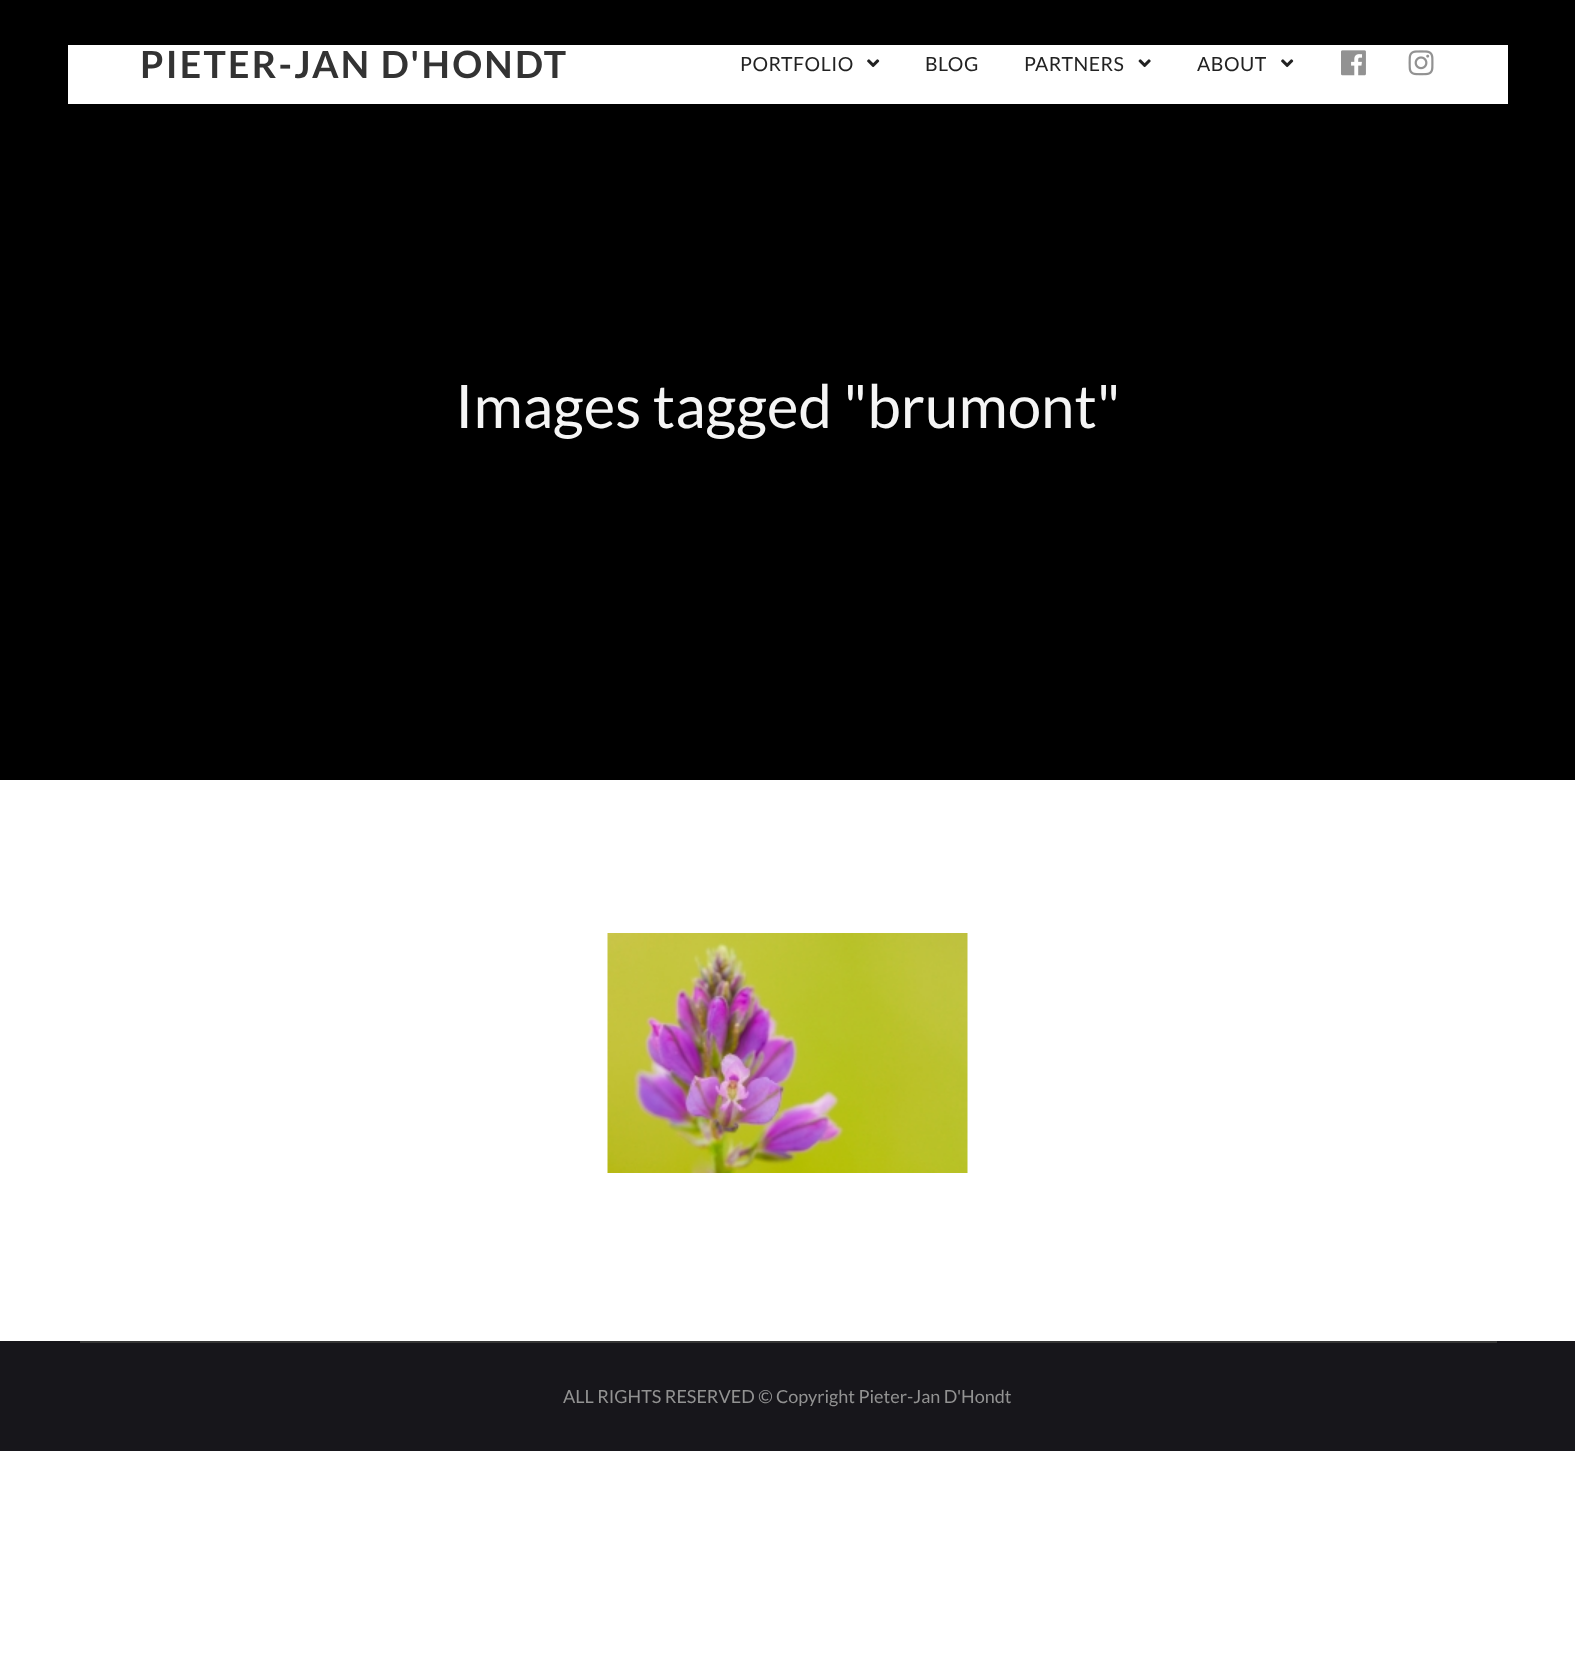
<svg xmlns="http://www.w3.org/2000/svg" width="1575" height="1665">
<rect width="100%" height="100%" fill="#fff"/>
<rect width="1575" height="780" fill="#000"/>
<rect x="68" y="45" width="1440" height="59" fill="#fff"/>
<text x="140" y="78" style="font-family:Lato;font-size:37.5px;font-weight:bold;letter-spacing:2.25px;fill:#333">PIETER-JAN D'HONDT</text>
<text x="740" y="71" style="font-family:Lato;font-size:19.5px;letter-spacing:0.5px;fill:#222">PORTFOLIO</text>
<image x="867" y="59" width="13" height="9" href="media/1.png"/>
<text x="925" y="71" style="font-family:Lato;font-size:19.5px;letter-spacing:0.5px;fill:#222">BLOG</text>
<text x="1024" y="71" style="font-family:Lato;font-size:19.5px;letter-spacing:0.5px;fill:#222">PARTNERS</text>
<image x="1138" y="59" width="13" height="9" href="media/2.png"/>
<text x="1197" y="71" style="font-family:Lato;font-size:19.5px;letter-spacing:0.5px;fill:#222">ABOUT</text>
<image x="1281" y="59" width="13" height="9" href="media/1.png"/>
<image x="1341" y="50" width="25" height="26" href="media/3.png"/>
<image x="1408" y="50" width="26" height="26" href="media/4.png"/>
<text x="455" y="428" style="font-family:Lato;font-size:60px;fill:#f5f5f5">Images tagged "brumont"</text>
<image x="607" y="933" width="361" height="240" href="media/5.png"/>
<rect y="1341" width="1575" height="110" fill="#17161b"/>
<rect x="80" y="1341" width="1417" height="2" fill="#363636"/>
<text x="563" y="1403" style="font-family:Lato;font-size:18px;fill:#929292">ALL RIGHTS RESERVED © Copyright Pieter-Jan D'Hondt</text>
</svg>
